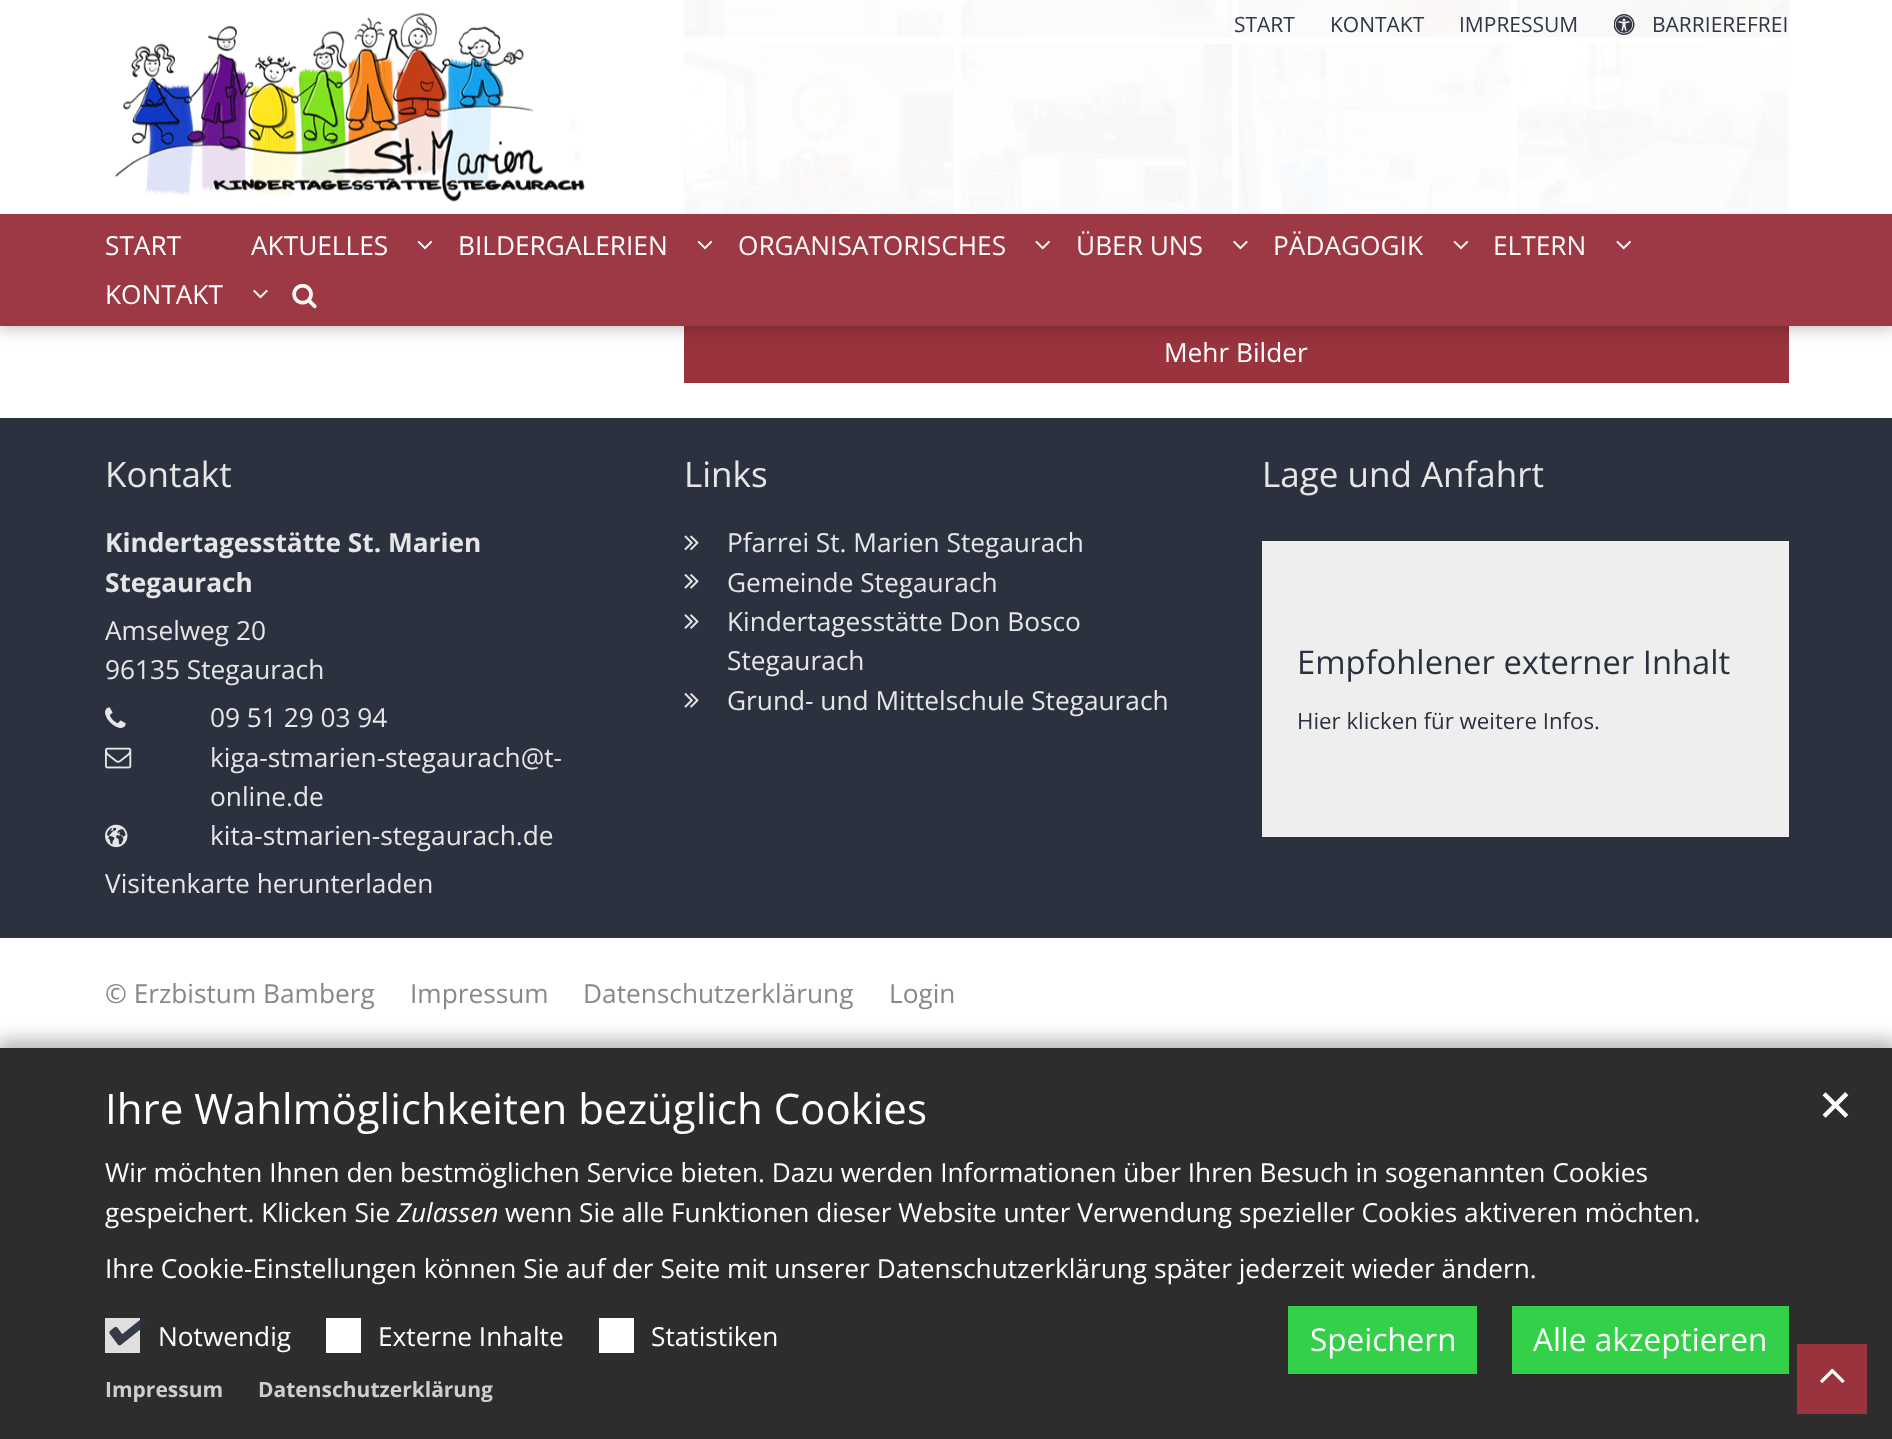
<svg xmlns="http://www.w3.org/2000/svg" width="1892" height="1439">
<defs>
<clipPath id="clip1"><path d="M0 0h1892v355h-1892zm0 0h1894v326h-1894z" clip-rule="evenodd"/></clipPath>
</defs>
<rect width="100%" height="100%" fill="#fff"/>
<image x="684" y="0" width="270" height="37" href="media/11.png"/>
<image x="961" y="0" width="271" height="37" href="media/12.png"/>
<image x="1239" y="0" width="271" height="37" href="media/13.png"/>
<image x="1517" y="0" width="272" height="37" href="media/14.png"/>
<image x="684" y="43" width="270" height="272" href="media/15.png"/>
<image x="960" y="43" width="272" height="272" href="media/16.png"/>
<image x="1239" y="43" width="272" height="272" href="media/17.png"/>
<image x="1517" y="43" width="272" height="272" href="media/18.png"/>
<rect x="684" y="322" width="1105" height="61" fill="#99333e"/>
<g clip-path="url(#clip1)">
<rect x="-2" y="-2" width="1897" height="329" fill="#0000004a" filter="blur(9px)"/>
</g>
<rect width="1892" height="326" fill="#fffffff7"/>
<image x="115" y="12" width="470" height="190" href="media/1.png"/>
<text x="1234" y="32" style="font-family:Open Sans;font-size:21px;fill:#303744">START</text>
<text x="1330" y="32" style="font-family:Open Sans;font-size:21px;fill:#303744">KONTAKT</text>
<text x="1459" y="32" style="font-family:Open Sans;font-size:21px;fill:#303744">IMPRESSUM</text>
<image x="1614" y="14" width="21" height="21" href="media/2.png"/>
<text x="1652" y="32" style="font-family:Open Sans;font-size:21px;fill:#303744">BARRIEREFREI</text>
<rect y="214" width="1892" height="112" fill="#99333ef7"/>
<text x="105" y="255" style="font-family:Open Sans;font-size:26.25px;fill:#fff">START</text>
<text x="251" y="255" style="font-family:Open Sans;font-size:26.25px;fill:#fff">AKTUELLES</text>
<image x="417" y="240" width="16" height="10" href="media/3.png"/>
<text x="458" y="255" style="font-family:Open Sans;font-size:26.25px;fill:#fff">BILDERGALERIEN</text>
<image x="697" y="240" width="16" height="10" href="media/4.png"/>
<text x="738" y="255" style="font-family:Open Sans;font-size:26.25px;fill:#fcf9f9">ORGANISATORISCHES</text>
<image x="1035" y="240" width="15" height="10" href="media/5.png"/>
<text x="1076" y="255" style="font-family:Open Sans;font-size:26.25px;fill:#fcf9f9">ÜBER UNS</text>
<image x="1233" y="240" width="15" height="10" href="media/6.png"/>
<text x="1273" y="255" style="font-family:Open Sans;font-size:26.25px;fill:#fcf9f9">PÄDAGOGIK</text>
<image x="1453" y="240" width="16" height="10" href="media/7.png"/>
<text x="1493" y="255" style="font-family:Open Sans;font-size:26.25px;fill:#fcf9f9">ELTERN</text>
<image x="1616" y="240" width="15" height="10" href="media/8.png"/>
<text x="105" y="304" style="font-family:Open Sans;font-size:26.25px;fill:#fff">KONTAKT</text>
<image x="253" y="289" width="15" height="10" href="media/9.png"/>
<image x="292" y="283" width="25" height="26" href="media/10.png"/>
<text x="1164" y="362" style="font-family:Open Sans;font-size:26.25px;fill:#fff">Mehr Bilder</text>
<rect y="418" width="1892" height="520" fill="#2b313f"/>
<text x="105" y="487" style="font-family:Open Sans;font-size:35px;fill:#e6e6e6">Kontakt</text>
<text x="105" y="552" style="font-family:Open Sans;font-size:26.25px;font-weight:bold;fill:#e6e6e6">Kindertagesstätte St. Marien</text>
<text x="105" y="592" style="font-family:Open Sans;font-size:26.25px;font-weight:bold;fill:#e6e6e6">Stegaurach</text>
<text x="105" y="640" style="font-family:Open Sans;font-size:26.25px;fill:#e6e6e6">Amselweg 20</text>
<text x="105" y="679" style="font-family:Open Sans;font-size:26.25px;fill:#e6e6e6">96135 Stegaurach</text>
<image x="105" y="707" width="21" height="21" href="media/19.png"/>
<text x="210" y="727" style="font-family:Open Sans;font-size:26.25px;fill:#e6e6e6">09 51 29 03 94</text>
<image x="105" y="747" width="27" height="22" href="media/20.png"/>
<text x="210" y="767" style="font-family:Open Sans;font-size:26.25px;fill:#e6e6e6">kiga-stmarien-stegaurach@t-</text>
<text x="210" y="806" style="font-family:Open Sans;font-size:26.25px;fill:#e6e6e6">online.de</text>
<image x="105" y="824" width="23" height="24" href="media/21.png"/>
<text x="210" y="845" style="font-family:Open Sans;font-size:26.25px;fill:#e6e6e6">kita-stmarien-stegaurach.de</text>
<text x="105" y="893" style="font-family:Open Sans;font-size:26.25px;fill:#e6e6e6">Visitenkarte herunterladen</text>
<text x="684" y="487" style="font-family:Open Sans;font-size:35px;fill:#e6e6e6">Links</text>
<image x="684" y="535" width="15" height="16" href="media/22.png"/>
<text x="727" y="552" style="font-family:Open Sans;font-size:26.25px;fill:#e6e6e6">Pfarrei St. Marien Stegaurach</text>
<image x="684" y="574" width="15" height="15" href="media/23.png"/>
<text x="727" y="592" style="font-family:Open Sans;font-size:26.25px;fill:#e6e6e6">Gemeinde Stegaurach</text>
<image x="684" y="614" width="15" height="15" href="media/24.png"/>
<text x="727" y="631" style="font-family:Open Sans;font-size:26.25px;fill:#e6e6e6">Kindertagesstätte Don Bosco</text>
<text x="727" y="670" style="font-family:Open Sans;font-size:26.25px;fill:#e6e6e6">Stegaurach</text>
<image x="684" y="693" width="15" height="15" href="media/23.png"/>
<text x="727" y="710" style="font-family:Open Sans;font-size:26.25px;fill:#e6e6e6">Grund- und Mittelschule Stegaurach</text>
<text x="1262" y="487" style="font-family:Open Sans;font-size:35px;fill:#e6e6e6">Lage und Anfahrt</text>
<rect x="1262" y="541" width="527" height="296" fill="#eee"/>
<text x="1297" y="674" style="font-family:Open Sans;font-size:32.75px;fill:#2a313e">Empfohlener externer Inhalt</text>
<text x="1297" y="729" style="font-family:Open Sans;font-size:22.25px;fill:#2a313e">Hier klicken für weitere Infos.</text>
<text x="105" y="1003" style="font-family:Open Sans;font-size:26.25px;fill:#888">© Erzbistum Bamberg</text>
<text x="410" y="1003" style="font-family:Open Sans;font-size:26.25px;fill:#888">Impressum</text>
<text x="583" y="1003" style="font-family:Open Sans;font-size:26.25px;fill:#888">Datenschutzerklärung</text>
<text x="889" y="1003" style="font-family:Open Sans;font-size:26.25px;fill:#888">Login</text>
<rect x="-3" y="1040" width="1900" height="399" fill="#0d0d0d4d" filter="blur(9px)"/>
<rect y="1048" width="1892" height="391" fill="#2d2d2d"/>
<text x="105" y="1124" style="font-family:Open Sans;font-size:42px;fill:#fff">Ihre Wahlmöglichkeiten bezüglich Cookies</text>
<text x="1817" y="1121" style="font-family:DejaVu Sans;font-size:44px;fill:#fff">✕</text>
<text x="105" y="1182" style="font-family:Open Sans;font-size:26.25px;fill:#fff">Wir möchten Ihnen den bestmöglichen Service bieten. Dazu werden Informationen über Ihren Besuch in sogenannten Cookies</text>
<text x="105" y="1222" style="font-family:Open Sans;font-size:26.25px;fill:#fff">gespeichert. Klicken Sie</text>
<text x="397" y="1222" style="font-family:Open Sans;font-size:26.25px;font-style:italic;fill:#fff">Zulassen</text>
<text x="505" y="1222" style="font-family:Open Sans;font-size:26.25px;fill:#fff">wenn Sie alle Funktionen dieser Website unter Verwendung spezieller Cookies aktiveren möchten.</text>
<text x="105" y="1278" style="font-family:Open Sans;font-size:26.25px;fill:#fff">Ihre Cookie-Einstellungen können Sie auf der Seite mit unserer Datenschutzerklärung später jederzeit wieder ändern.</text>
<rect x="105" y="1318" width="35" height="35" fill="#dfdfdf"/>
<image x="109" y="1319" width="38" height="27" href="media/25.png"/>
<text x="158" y="1346" style="font-family:Open Sans;font-size:26.25px;fill:#fff">Notwendig</text>
<rect x="326" y="1318" width="35" height="35" fill="#fff"/>
<text x="378" y="1346" style="font-family:Open Sans;font-size:26.25px;fill:#fff">Externe Inhalte</text>
<rect x="599" y="1318" width="35" height="35" fill="#fff"/>
<text x="651" y="1346" style="font-family:Open Sans;font-size:26.25px;fill:#fff">Statistiken</text>
<rect x="1288" y="1306" width="189" height="68" fill="#34d049"/>
<text x="1310" y="1351" style="font-family:Open Sans;font-size:31.5px;fill:#fff">Speichern</text>
<rect x="1512" y="1306" width="277" height="68" fill="#34d049"/>
<text x="1533" y="1351" style="font-family:Open Sans;font-size:31.5px;fill:#fff">Alle akzeptieren</text>
<text x="105" y="1397" style="font-family:Open Sans;font-size:21px;font-weight:bold;fill:#cfcfcf">Impressum</text>
<text x="258" y="1397" style="font-family:Open Sans;font-size:21px;font-weight:bold;fill:#cfcfcf">Datenschutzerklärung</text>
<rect x="1797" y="1344" width="70" height="70" fill="#99333e"/>
<image x="1820" y="1368" width="25" height="15" href="media/26.png"/>
</svg>
